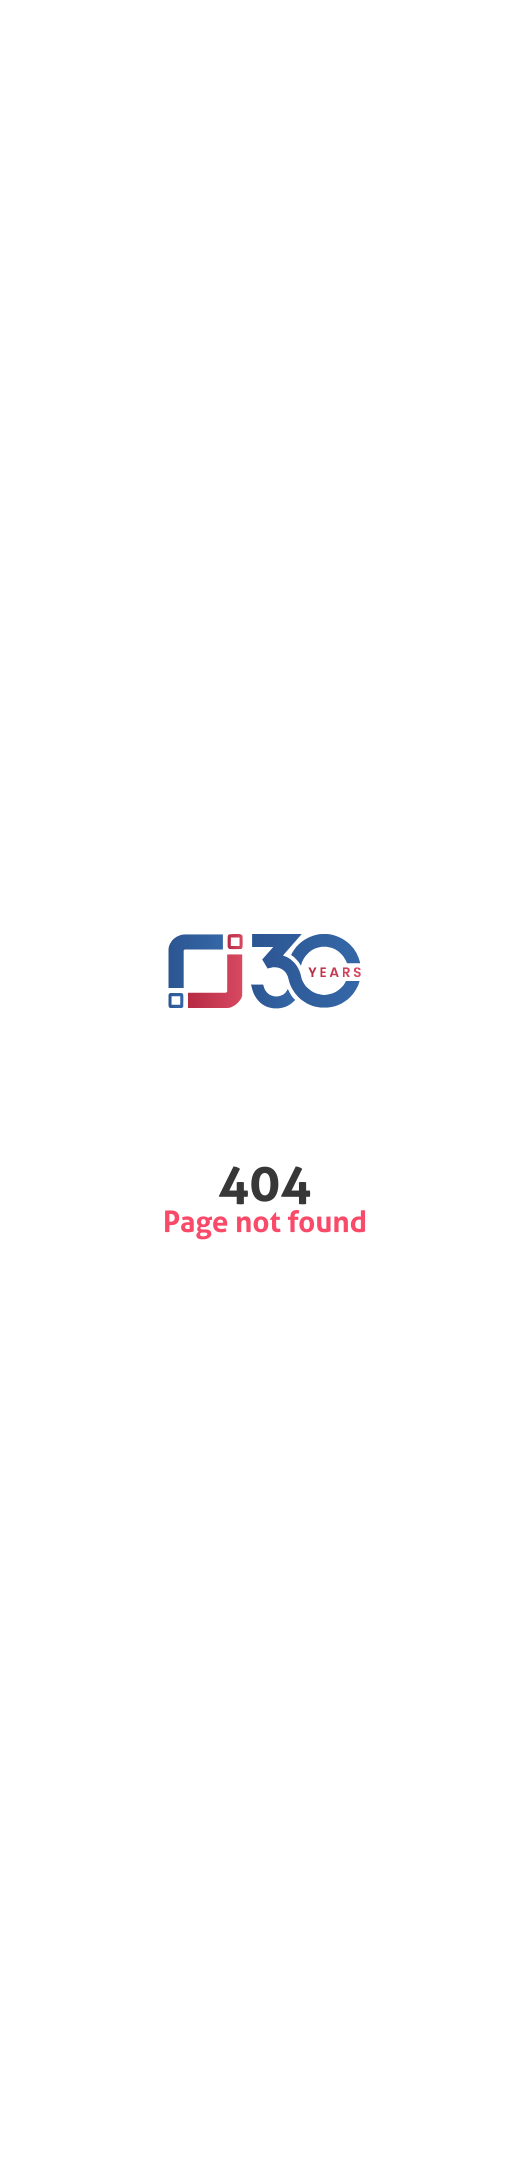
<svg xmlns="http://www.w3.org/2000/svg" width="529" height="2172">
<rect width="100%" height="100%" fill="#fff"/>
<image x="168" y="934" width="193" height="75" href="media/1.png"/>
<image x="218" y="1166" width="93" height="39" href="media/2.png"/>
<image x="165" y="1210" width="201" height="30" href="media/3.png"/>
</svg>
